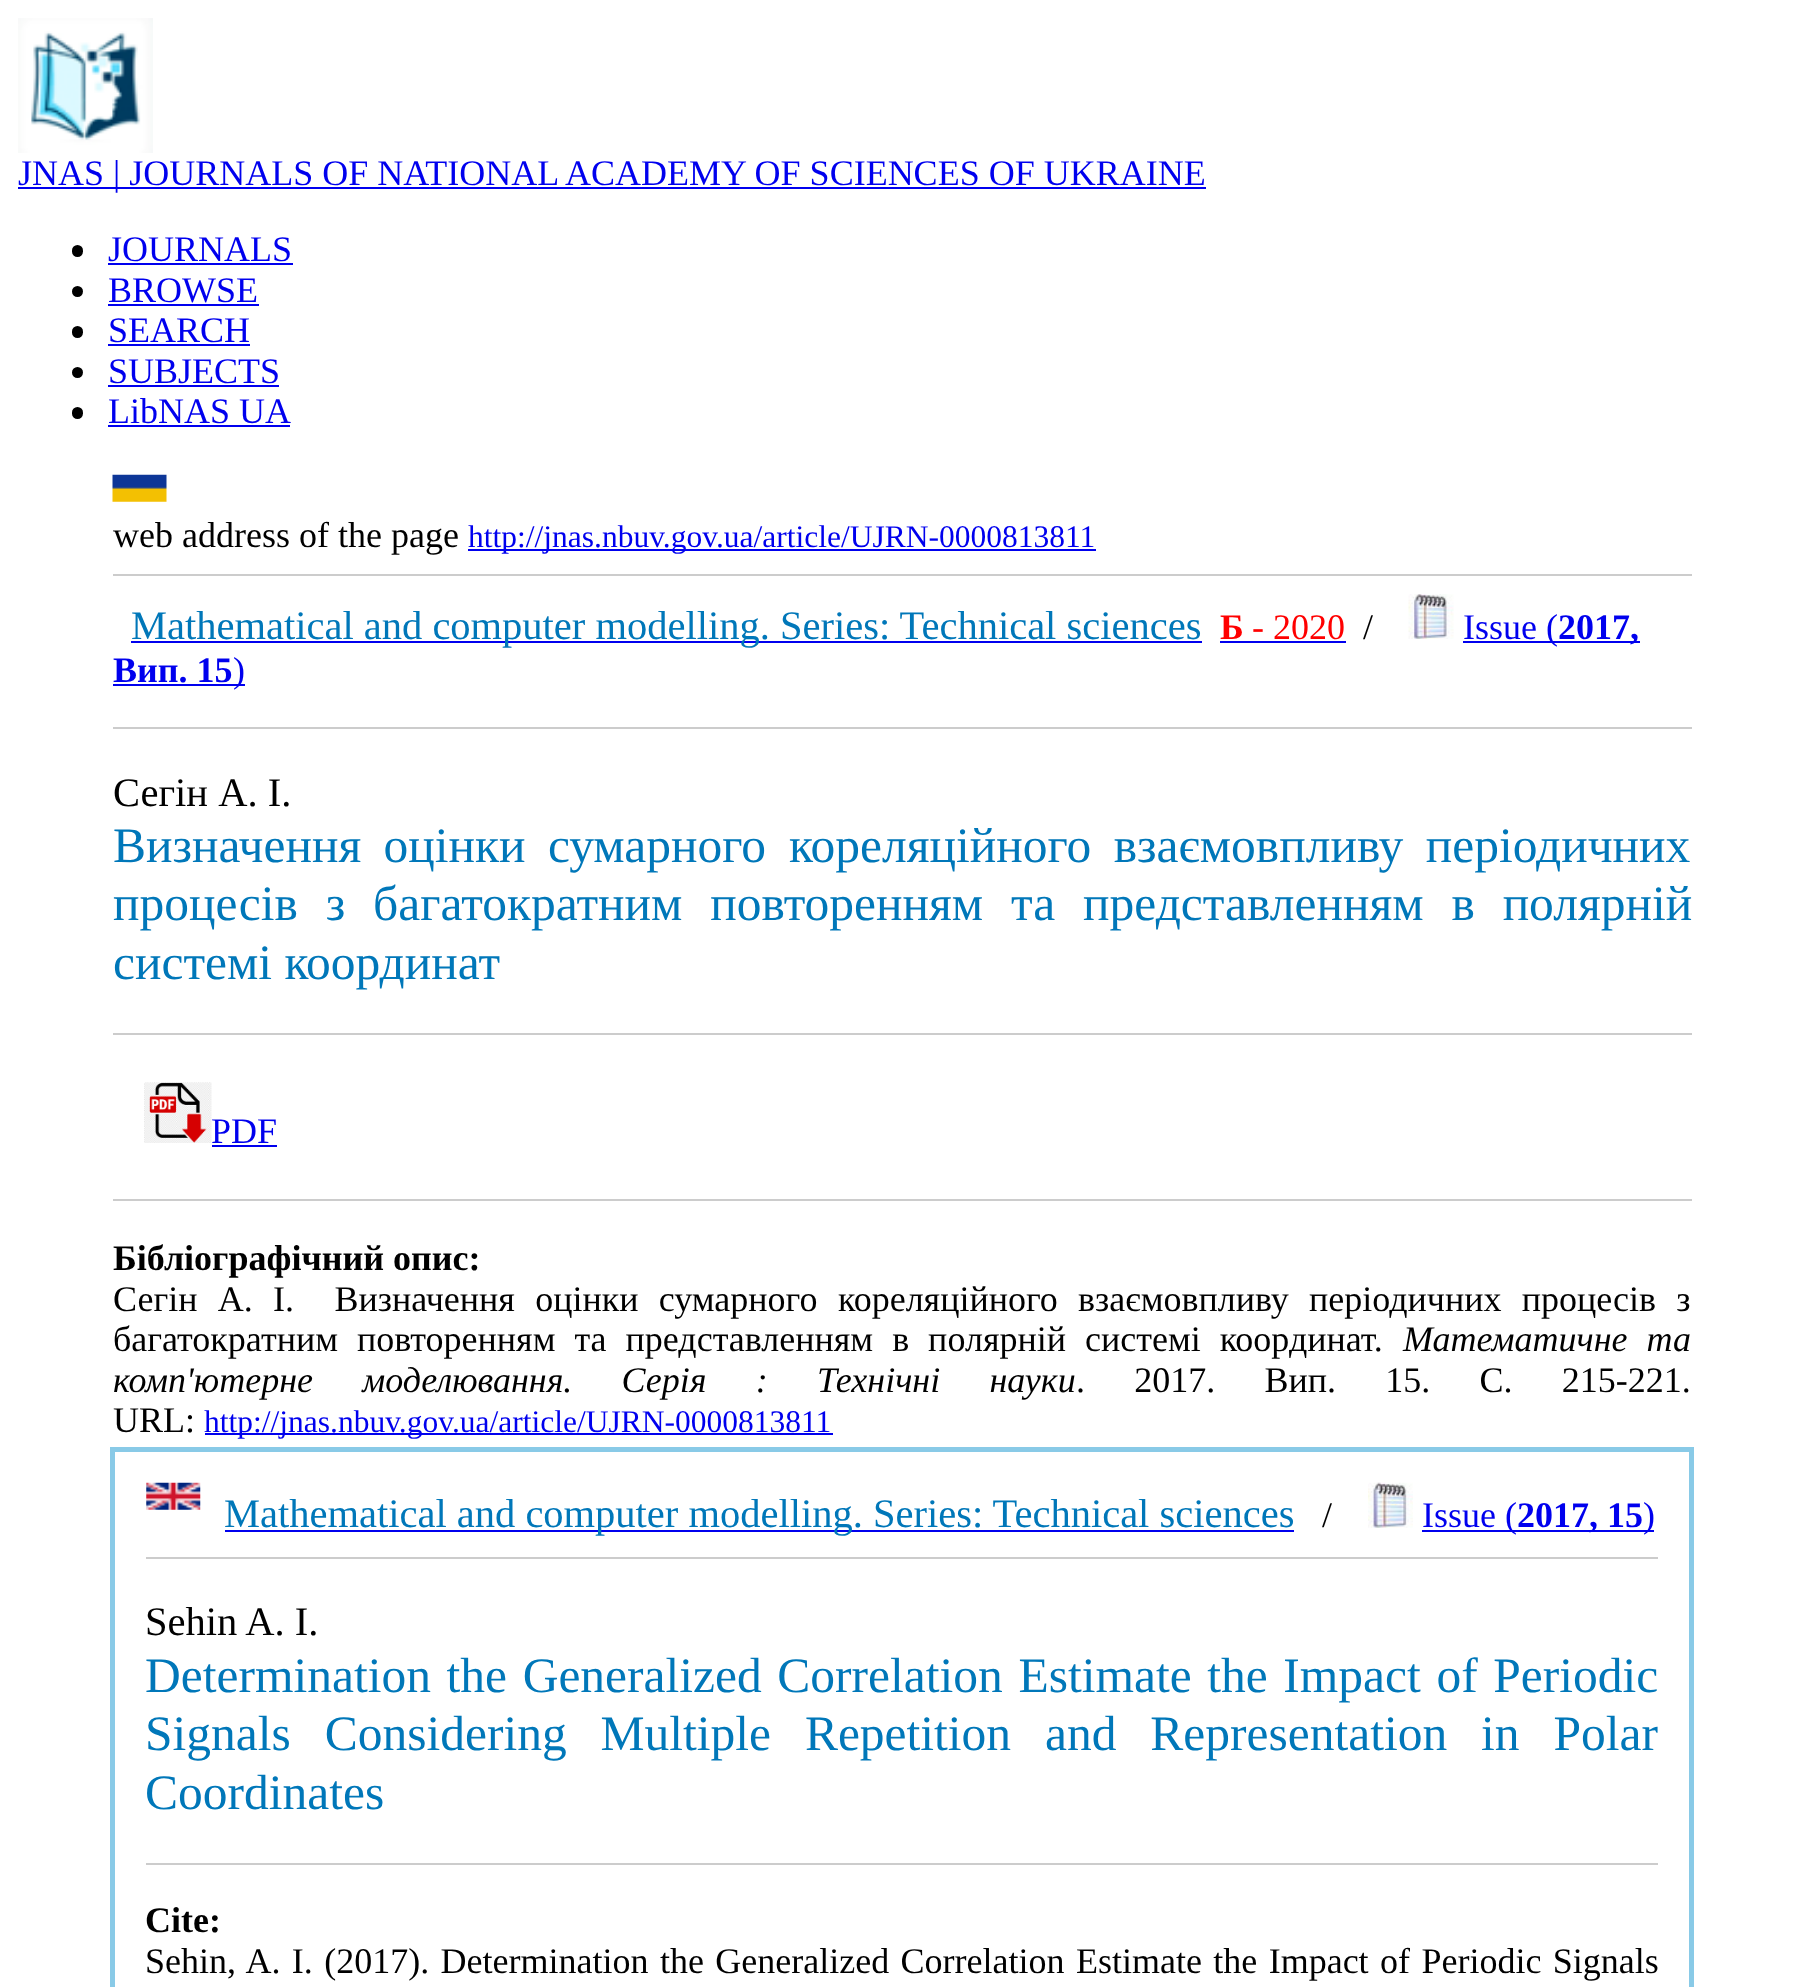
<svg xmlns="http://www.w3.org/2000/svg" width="1804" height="1987">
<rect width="100%" height="100%" fill="#fff"/>
<image x="18" y="18" width="135" height="135" href="media/1.png"/>
<rect x="18" y="187" width="1188" height="2" fill="#00e"/>
<text x="18" y="185" style="font-family:Liberation Serif;font-size:36px;fill:#00e">JNAS | JOURNALS OF NATIONAL ACADEMY OF SCIENCES OF UKRAINE</text>
<rect x="72" y="245" width="11" height="12" rx="5.5" fill="#000"/>
<text x="108" y="261" style="font-family:Liberation Serif;font-size:36px;fill:#00e">JOURNALS</text>
<rect x="108" y="263" width="185" height="2" fill="#00e"/>
<circle cx="77.5" cy="291.5" r="5.5" fill="#000"/>
<text x="108" y="302" style="font-family:Liberation Serif;font-size:36px;fill:#00e">BROWSE</text>
<rect x="108" y="304" width="151" height="2" fill="#00e"/>
<rect x="72" y="326" width="11" height="12" rx="5.5" fill="#000"/>
<text x="108" y="342" style="font-family:Liberation Serif;font-size:36px;fill:#00e">SEARCH</text>
<rect x="108" y="344" width="142" height="2" fill="#00e"/>
<circle cx="77.5" cy="372.5" r="5.5" fill="#000"/>
<text x="108" y="383" style="font-family:Liberation Serif;font-size:36px;fill:#00e">SUBJECTS</text>
<rect x="108" y="385" width="171" height="2" fill="#00e"/>
<rect x="72" y="407" width="11" height="12" rx="5.5" fill="#000"/>
<text x="108" y="423" style="font-family:Liberation Serif;font-size:36px;fill:#00e">LibNAS UA</text>
<rect x="108" y="425" width="182" height="2" fill="#00e"/>
<image x="112" y="474" width="55" height="28" href="media/2.png"/>
<text x="113" y="547" style="font-family:Liberation Serif;font-size:36px;fill:#000">web address of the page</text>
<rect x="468" y="549" width="628" height="2" fill="#00e"/>
<text x="468" y="547" style="font-family:Liberation Serif;font-size:31.5px;fill:#00e">http://jnas.nbuv.gov.ua/article/UJRN-0000813811</text>
<rect x="113" y="574" width="1579" height="2" fill="#ccc"/>
<rect x="131" y="641" width="1071" height="2" fill="#00e"/>
<text x="131" y="639" style="font-family:Liberation Serif;font-size:40.5px;fill:#0077b9">Mathematical and computer modelling. Series: Technical sciences</text>
<text x="1220" y="639" style="font-family:Liberation Serif;font-size:36px;font-weight:bold;fill:#f00">Б</text>
<rect x="1220" y="641" width="126" height="2" fill="#00e"/>
<text x="1252" y="639" style="font-family:Liberation Serif;font-size:36px;fill:#f00">- 2020</text>
<text x="1363" y="639" style="font-family:Liberation Serif;font-size:36px;fill:#000">/</text>
<image x="1408" y="594" width="46" height="45" href="media/3.png"/>
<rect x="1463" y="641" width="177" height="2" fill="#00e"/>
<text x="1463" y="639" style="font-family:Liberation Serif;font-size:36px;fill:#00e">Issue (</text>
<text x="1558" y="639" style="font-family:Liberation Serif;font-size:36px;font-weight:bold;fill:#00e">2017,</text>
<text x="113" y="682" style="font-family:Liberation Serif;font-size:36px;font-weight:bold;fill:#00e">Вип. 15</text>
<rect x="113" y="684" width="132" height="2" fill="#00e"/>
<text x="233" y="682" style="font-family:Liberation Serif;font-size:36px;fill:#00e">)</text>
<rect x="113" y="727" width="1579" height="2" fill="#ccc"/>
<text x="113" y="806" style="font-family:Liberation Serif;font-size:40.5px;fill:#000">Сегін А. І.</text>
<text x="113" y="862" word-spacing="10" style="font-family:Liberation Serif;font-size:49.5px;fill:#0077b9">Визначення оцінки сумарного</text>
<text x="789" y="862" word-spacing="10" style="font-family:Liberation Serif;font-size:49.5px;fill:#0077b9">кореляційного взаємовпливу періодичних</text>
<text x="113" y="920" word-spacing="15.5" style="font-family:Liberation Serif;font-size:49.5px;fill:#0077b9">процесів з багатократним повторенням та представленням в полярній</text>
<text x="113" y="979" style="font-family:Liberation Serif;font-size:49.5px;fill:#0077b9">системі координат</text>
<rect x="113" y="1033" width="1579" height="2" fill="#ccc"/>
<image x="144" y="1082" width="68" height="61" href="media/4.png"/>
<text x="211" y="1143" style="font-family:Liberation Serif;font-size:36px;fill:#00e">PDF</text>
<rect x="212" y="1145" width="65" height="2" fill="#00e"/>
<rect x="113" y="1199" width="1579" height="2" fill="#ccc"/>
<text x="113" y="1270" style="font-family:Liberation Serif;font-size:36px;font-weight:bold;fill:#000">Бібліографічний опис:</text>
<text x="113" y="1311" word-spacing="11.25" style="font-family:Liberation Serif;font-size:36px;fill:#000" xml:space="preserve">Сегін А. І.  Визначення оцінки сумарного</text>
<text x="838" y="1311" word-spacing="11.25" style="font-family:Liberation Serif;font-size:36px;fill:#000">кореляційного взаємовпливу періодичних процесів з</text>
<text x="113" y="1351" word-spacing="10" style="font-family:Liberation Serif;font-size:36px;fill:#000">багатократним повторенням та представленням в полярній системі координат.</text>
<text x="1403" y="1351" word-spacing="10" style="font-family:Liberation Serif;font-size:36px;font-style:italic;fill:#000">Математичне та</text>
<text x="113" y="1392" word-spacing="40.25" style="font-family:Liberation Serif;font-size:36px;font-style:italic;fill:#000">комп'ютерне моделювання. Серія : Технічні науки</text>
<text x="1076" y="1392" word-spacing="40.25" style="font-family:Liberation Serif;font-size:36px;fill:#000">. 2017. Вип. 15. С. 215-221.</text>
<text x="113" y="1432" style="font-family:Liberation Serif;font-size:36px;fill:#000">URL:</text>
<rect x="205" y="1433" width="628" height="2" fill="#00e"/>
<text x="204" y="1432" style="font-family:Liberation Serif;font-size:31.5px;fill:#00e">http://jnas.nbuv.gov.ua/article/UJRN-0000813811</text>
<rect x="112.5" y="1449.5" width="1579" height="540" fill="none" stroke="#89cae7" stroke-width="5"/>
<image x="146" y="1482" width="55" height="28" href="media/5.png"/>
<rect x="225" y="1530" width="1069" height="2" fill="#00e"/>
<text x="224" y="1527" style="font-family:Liberation Serif;font-size:40.5px;fill:#0077b9">Mathematical and computer modelling. Series: Technical sciences</text>
<text x="1322" y="1527" style="font-family:Liberation Serif;font-size:36px;fill:#000">/</text>
<image x="1368" y="1482" width="45" height="46" href="media/6.png"/>
<rect x="1422" y="1530" width="232" height="2" fill="#00e"/>
<text x="1422" y="1527" style="font-family:Liberation Serif;font-size:36px;fill:#00e">Issue (</text>
<text x="1517" y="1527" style="font-family:Liberation Serif;font-size:36px;font-weight:bold;fill:#00e">2017, 15</text>
<text x="1643" y="1527" style="font-family:Liberation Serif;font-size:36px;fill:#00e">)</text>
<rect x="146" y="1557" width="1512" height="2" fill="#ccc"/>
<text x="145" y="1635" style="font-family:Liberation Serif;font-size:40.5px;fill:#000">Sehin A. I.</text>
<text x="145" y="1692" word-spacing="3.25" style="font-family:Liberation Serif;font-size:49.5px;fill:#0077b9">Determination the Generalized Correlation Estimate the Impact of Periodic</text>
<text x="145" y="1750" word-spacing="21.5" style="font-family:Liberation Serif;font-size:49.5px;fill:#0077b9">Signals Considering Multiple Repetition and Representation in Polar</text>
<text x="145" y="1809" style="font-family:Liberation Serif;font-size:49.5px;fill:#0077b9">Coordinates</text>
<rect x="146" y="1863" width="1512" height="2" fill="#ccc"/>
<text x="145" y="1932" style="font-family:Liberation Serif;font-size:36px;font-weight:bold;fill:#000">Cite:</text>
<text x="145" y="1973" word-spacing="2.4" style="font-family:Liberation Serif;font-size:36px;fill:#000">Sehin, A. I. (2017). Determination the Generalized Correlation Estimate the Impact of Periodic Signals</text>
</svg>
